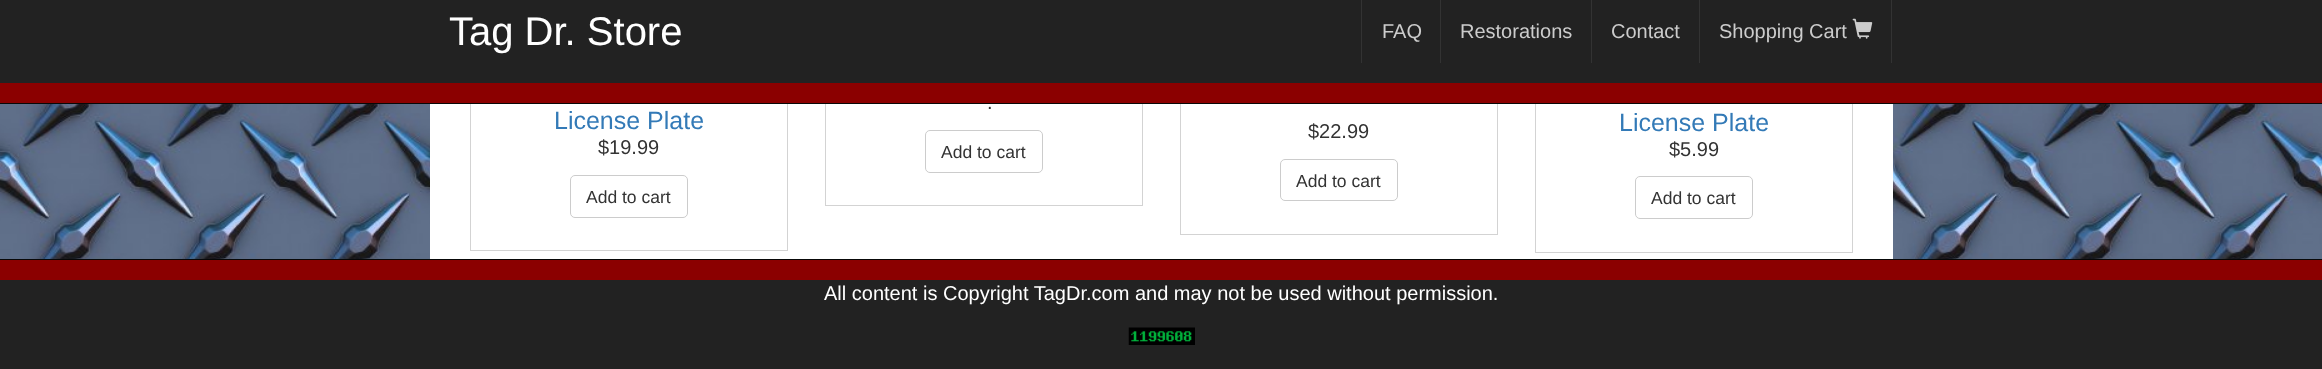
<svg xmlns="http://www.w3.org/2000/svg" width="2322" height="369">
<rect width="100%" height="100%" fill="#fff"/>
<image x="0" y="104" width="2322" height="155" href="media/1.png"/>
<rect x="430" y="104" width="1463" height="155" fill="#fff"/>
<rect x="470.5" y="-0.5" width="317" height="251" fill="none" stroke="#d3d3d3"/>
<rect x="825.5" y="-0.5" width="317" height="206" fill="none" stroke="#d3d3d3"/>
<rect x="1180.5" y="-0.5" width="317" height="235" fill="none" stroke="#d3d3d3"/>
<rect x="1535.5" y="-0.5" width="317" height="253" fill="none" stroke="#d3d3d3"/>
<rect width="2322" height="83" fill="#222"/>
<rect y="103" width="2322" height="1" fill="#080808"/>
<text x="449" y="45" style="font-family:Liberation Sans;font-size:40px;fill:#fff">Tag Dr. Store</text>
<rect x="1361" width="1" height="63" fill="#333"/>
<text x="1382" y="38" style="font-family:Liberation Sans;font-size:20px;fill:#ccc">FAQ</text>
<rect x="1440" width="1" height="63" fill="#333"/>
<text x="1460" y="38" style="font-family:Liberation Sans;font-size:20px;fill:#ccc">Restorations</text>
<rect x="1591" width="1" height="63" fill="#333"/>
<text x="1611" y="38" style="font-family:Liberation Sans;font-size:20px;fill:#ccc">Contact</text>
<rect x="1891" width="1" height="63" fill="#333"/>
<rect x="1699" width="1" height="63" fill="#333"/>
<text x="1719" y="38" style="font-family:Liberation Sans;font-size:20px;fill:#ccc">Shopping Cart</text>
<image x="1852" y="18" width="21" height="21" href="media/2.png"/>
<rect y="83" width="2322" height="20" fill="#8b0000"/>
<text x="554" y="129" style="font-family:Liberation Sans;font-size:25px;fill:#337ab7">License Plate</text>
<text x="598" y="154" style="font-family:Liberation Sans;font-size:20px;fill:#333">$19.99</text>
<rect x="570.5" y="175.5" width="117" height="42" rx="4.5" fill="none" stroke="#ccc"/>
<text x="586" y="203" style="font-family:Liberation Sans;font-size:17.5px;fill:#333">Add to cart</text>
<text x="987" y="109" style="font-family:Liberation Sans;font-size:20px;fill:#333">.</text>
<rect x="925.5" y="130.5" width="117" height="42" rx="4.5" fill="none" stroke="#ccc"/>
<text x="941" y="158" style="font-family:Liberation Sans;font-size:17.5px;fill:#333">Add to cart</text>
<text x="1308" y="138" style="font-family:Liberation Sans;font-size:20px;fill:#333">$22.99</text>
<rect x="1280.5" y="159.5" width="117" height="41" rx="4.5" fill="none" stroke="#ccc"/>
<text x="1296" y="187" style="font-family:Liberation Sans;font-size:17.5px;fill:#333">Add to cart</text>
<text x="1619" y="131" style="font-family:Liberation Sans;font-size:25px;fill:#337ab7">License Plate</text>
<text x="1669" y="156" style="font-family:Liberation Sans;font-size:20px;fill:#333">$5.99</text>
<rect x="1635.5" y="176.5" width="117" height="42" rx="4.5" fill="none" stroke="#ccc"/>
<text x="1651" y="204" style="font-family:Liberation Sans;font-size:17.5px;fill:#333">Add to cart</text>
<rect y="280" width="2322" height="89" fill="#222"/>
<rect y="259" width="2322" height="1" fill="#080808"/>
<rect y="260" width="2322" height="20" fill="#8b0000"/>
<text x="824" y="300" style="font-family:Liberation Sans;font-size:20px;fill:#fff">All content is Copyright TagDr.com and may not be used without permission.</text>
<image x="1128" y="327" width="67" height="18" href="media/3.png"/>
</svg>
